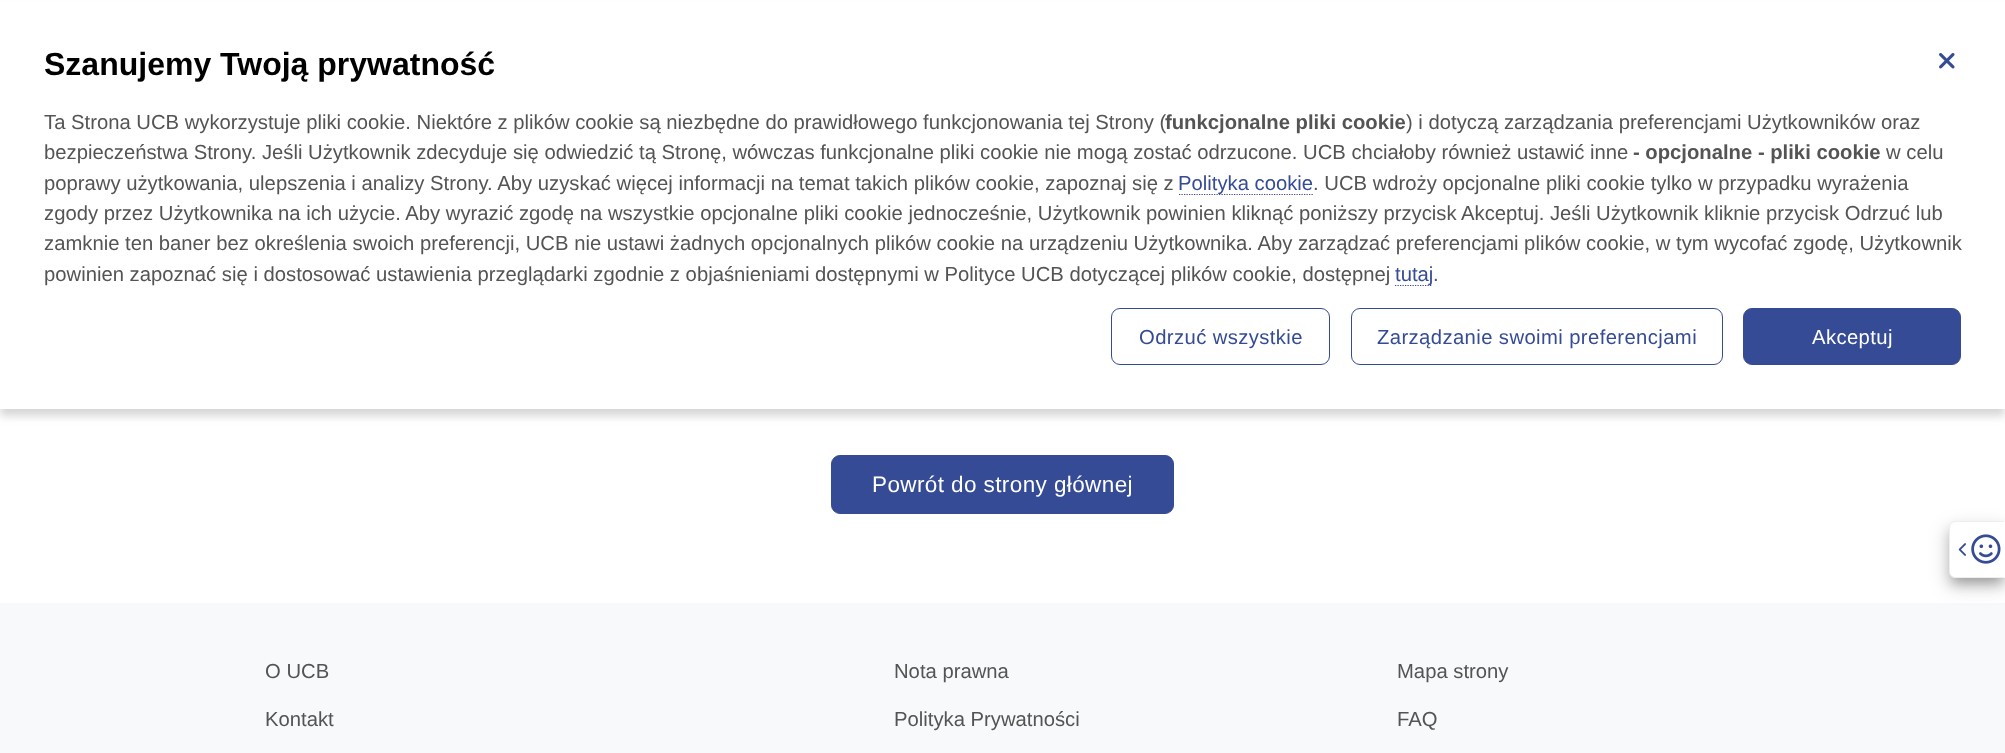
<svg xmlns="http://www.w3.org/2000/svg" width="2005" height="753">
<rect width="100%" height="100%" fill="#fff"/>
<rect y="8" width="2005" height="408" fill="#00000029" filter="blur(4px)"/>
<rect y="2" width="2005" height="407" fill="#fff"/>
<text x="44" y="75" style="font-family:Liberation Sans;font-size:32px;font-weight:bold;fill:#000">Szanujemy Twoją prywatność</text>
<image x="1939" y="53" width="16" height="16" href="media/1.png"/>
<text x="44" y="129" style="font-family:Liberation Sans;font-size:20.25px;fill:#545454">Ta Strona UCB wykorzystuje pliki cookie. Niektóre z plików cookie są niezbędne do prawidłowego funkcjonowania tej Strony (</text>
<text x="1165" y="129" style="font-family:Liberation Sans;font-size:20.25px;font-weight:bold;fill:#545454">funkcjonalne pliki cookie</text>
<text x="1406" y="129" style="font-family:Liberation Sans;font-size:20.25px;fill:#545454">) i dotyczą zarządzania preferencjami Użytkowników oraz</text>
<text x="44" y="159" style="font-family:Liberation Sans;font-size:20.25px;fill:#545454">bezpieczeństwa Strony. Jeśli Użytkownik zdecyduje się odwiedzić tą Stronę, wówczas funkcjonalne pliki cookie nie mogą zostać odrzucone. UCB chciałoby również ustawić inne</text>
<text x="1633" y="159" style="font-family:Liberation Sans;font-size:20.25px;font-weight:bold;fill:#545454">- opcjonalne - pliki cookie</text>
<text x="1886" y="159" style="font-family:Liberation Sans;font-size:20.25px;fill:#545454">w celu</text>
<text x="44" y="190" style="font-family:Liberation Sans;font-size:20.25px;fill:#545454">poprawy użytkowania, ulepszenia i analizy Strony. Aby uzyskać więcej informacji na temat takich plików cookie, zapoznaj się z</text>
<path d="M1179 194.5h135" fill="none" stroke="#354b96" stroke-width="1.2" stroke-dasharray="1.25 1.25"/>
<text x="1178" y="190" style="font-family:Liberation Sans;font-size:20.25px;fill:#354b96">Polityka cookie</text>
<text x="1313" y="190" style="font-family:Liberation Sans;font-size:20.25px;fill:#545454">. UCB wdroży opcjonalne pliki cookie tylko w przypadku wyrażenia</text>
<text x="44" y="220" style="font-family:Liberation Sans;font-size:20.25px;fill:#545454">zgody przez Użytkownika na ich użycie. Aby wyrazić zgodę na wszystkie opcjonalne pliki cookie jednocześnie, Użytkownik powinien kliknąć poniższy przycisk Akceptuj. Jeśli Użytkownik kliknie przycisk Odrzuć lub</text>
<text x="44" y="250" style="font-family:Liberation Sans;font-size:20.25px;fill:#545454">zamknie ten baner bez określenia swoich preferencji, UCB nie ustawi żadnych opcjonalnych plików cookie na urządzeniu Użytkownika. Aby zarządzać preferencjami plików cookie, w tym wycofać zgodę, Użytkownik</text>
<text x="44" y="281" style="font-family:Liberation Sans;font-size:20.25px;fill:#545454">powinien zapoznać się i dostosować ustawienia przeglądarki zgodnie z objaśnieniami dostępnymi w Polityce UCB dotyczącej plików cookie, dostępnej</text>
<path d="M1395 285.5h37.5" fill="none" stroke="#354b96" stroke-width="1.2" stroke-dasharray="1.25 1.25"/>
<text x="1395" y="281" style="font-family:Liberation Sans;font-size:20.25px;fill:#354b96">tutaj</text>
<text x="1433" y="281" style="font-family:Liberation Sans;font-size:20.25px;fill:#545454">.</text>
<rect x="1111.5" y="308.5" width="218" height="56" rx="8.5" fill="none" stroke="#354b96"/>
<text x="1139" y="344" style="font-family:Liberation Sans;font-size:20.25px;letter-spacing:0.4px;fill:#354b96">Odrzuć wszystkie</text>
<rect x="1351.5" y="308.5" width="371" height="56" rx="8.5" fill="none" stroke="#354b96"/>
<text x="1377" y="344" style="font-family:Liberation Sans;font-size:20.25px;letter-spacing:0.4px;fill:#354b96">Zarządzanie swoimi preferencjami</text>
<rect x="1743.5" y="308.5" width="217" height="56" rx="8.5" fill="#354b96" stroke="#354b96"/>
<text x="1812" y="344" style="font-family:Liberation Sans;font-size:20.25px;letter-spacing:0.4px;fill:#fff">Akceptuj</text>
<rect x="831.5" y="455.5" width="342" height="58" rx="8.5" fill="#354b96" stroke="#354b96"/>
<text x="872" y="492" style="font-family:Liberation Sans;font-size:22.5px;letter-spacing:0.4px;fill:#fff">Powrót do strony głównej</text>
<rect x="1955" y="538" width="44" height="43" fill="#00000033" filter="blur(6px)"/>
<rect y="603" width="2005" height="150" fill="#f8f9fa"/>
<rect x="1949" y="529" width="56" height="56" rx="6" fill="#0000001f" filter="blur(6px)"/>
<rect x="1946" y="526" width="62" height="62" rx="9" fill="#00000024" filter="blur(9px)"/>
<path d="M1955 521.5h49.5v56h-49.5c-3 0-5.5-2.5-5.5-5.5v-45c0-3 2.5-5.5 5.5-5.5z" fill="#fff" stroke="#eee"/>
<image x="1958" y="543" width="8" height="13" href="media/2.png"/>
<image x="1971" y="534" width="30" height="30" href="media/3.png"/>
<rect x="2004" y="521" width="1" height="57" fill="#fff"/>
<text x="265" y="678" style="font-family:Liberation Sans;font-size:20.25px;fill:#545454">O UCB</text>
<text x="265" y="726" style="font-family:Liberation Sans;font-size:20.25px;fill:#545454">Kontakt</text>
<text x="894" y="678" style="font-family:Liberation Sans;font-size:20.25px;fill:#545454">Nota prawna</text>
<text x="894" y="726" style="font-family:Liberation Sans;font-size:20.25px;fill:#545454">Polityka Prywatności</text>
<text x="1397" y="678" style="font-family:Liberation Sans;font-size:20.25px;fill:#545454">Mapa strony</text>
<text x="1397" y="726" style="font-family:Liberation Sans;font-size:20.25px;fill:#545454">FAQ</text>
</svg>
